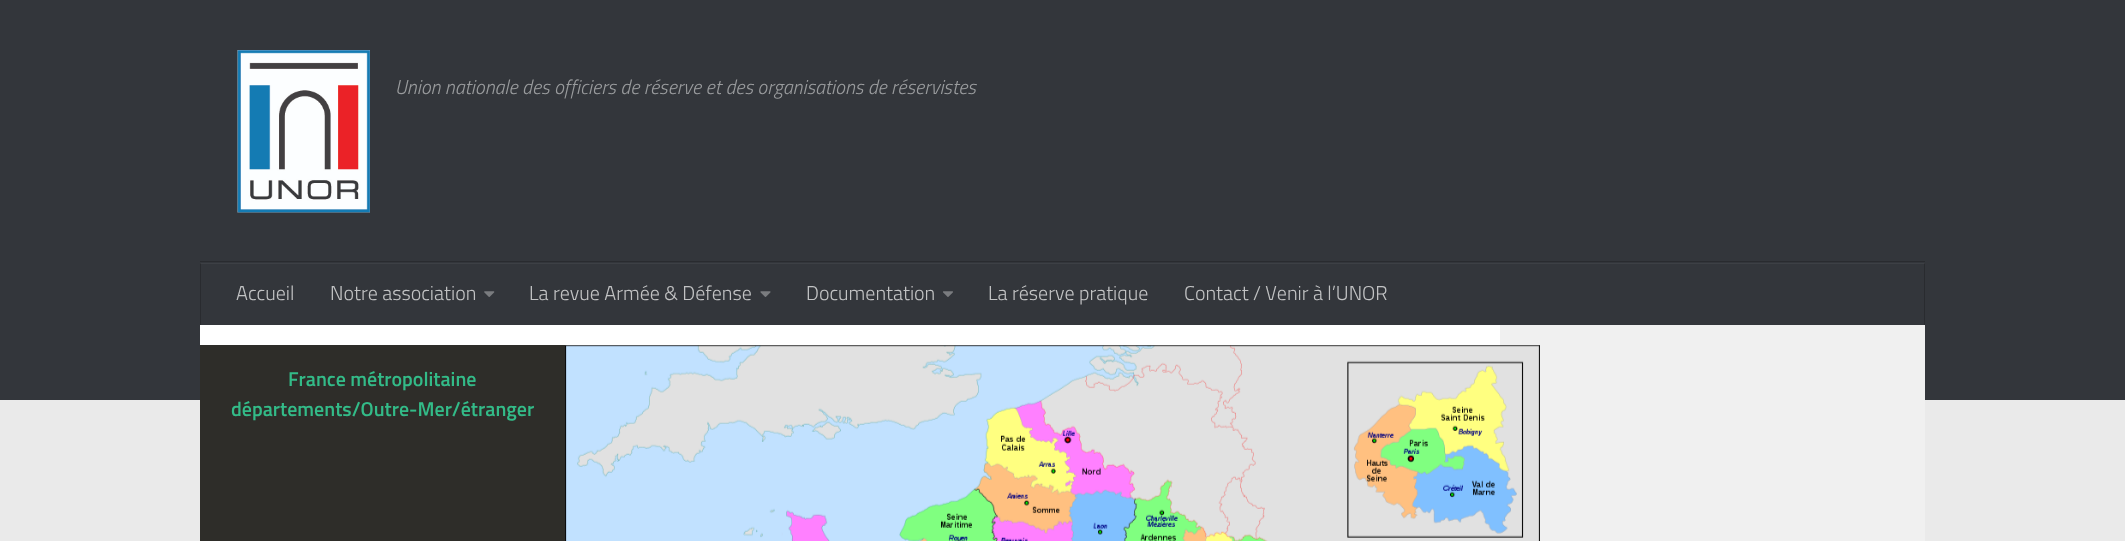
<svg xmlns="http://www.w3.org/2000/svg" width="2125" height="541">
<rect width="100%" height="100%" fill="#eaeaea"/>
<rect width="2125" height="400" fill="#33363b"/>
<rect x="200" y="263" width="1725" height="1" fill="#3d4045"/>
<image x="237" y="50" width="133" height="163" href="media/1.png"/>
<text x="395" y="94" style="font-family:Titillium;font-size:20px;font-weight:300;font-style:italic;fill:#999b9d">Union nationale des officiers de réserve et des organisations de réservistes</text>
<rect x="200" y="261" width="1725" height="1" fill="#292b2f"/>
<rect x="1924" y="263" width="1" height="62" fill="#292b2f"/>
<rect x="1924" y="263" width="1" height="1" fill="#343639"/>
<rect x="200" y="263" width="1" height="62" fill="#292b2f"/>
<rect x="200" y="263" width="1" height="1" fill="#343639"/>
<text x="236" y="300" style="font-family:Titillium;font-size:20px;font-weight:300;fill:#c2c3c4">Accueil</text>
<text x="330" y="300" style="font-family:Titillium;font-size:20px;font-weight:300;fill:#c2c3c4">Notre association</text>
<image x="484" y="291" width="11" height="6" href="media/2.png"/>
<text x="529" y="300" style="font-family:Titillium;font-size:20px;font-weight:300;fill:#c2c3c4">La revue Armée &amp; Défense</text>
<image x="760" y="291" width="11" height="6" href="media/3.png"/>
<text x="806" y="300" style="font-family:Titillium;font-size:20px;font-weight:300;fill:#c2c3c4">Documentation</text>
<image x="943" y="291" width="10" height="6" href="media/4.png"/>
<text x="988" y="300" style="font-family:Titillium;font-size:20px;font-weight:300;fill:#c2c3c4">La réserve pratique</text>
<text x="1184" y="300" style="font-family:Titillium;font-size:20px;font-weight:300;fill:#c2c3c4">Contact / Venir à l’UNOR</text>
<rect x="200" y="325" width="1300" height="21" fill="#fff"/>
<rect x="200" y="345" width="365" height="196" fill="#2e2d29"/>
<text x="288" y="386" style="font-family:Titillium;font-size:20px;font-weight:600;fill:#3b8">France métropolitaine</text>
<text x="231" y="416" style="font-family:Titillium;font-size:20px;font-weight:600;fill:#3b8">départements/Outre-Mer/étranger</text>
<rect x="1500" y="325" width="425" height="216" fill="#f0f0f0"/>
<image x="565" y="345" width="975" height="196" href="media/5.png"/>
</svg>
